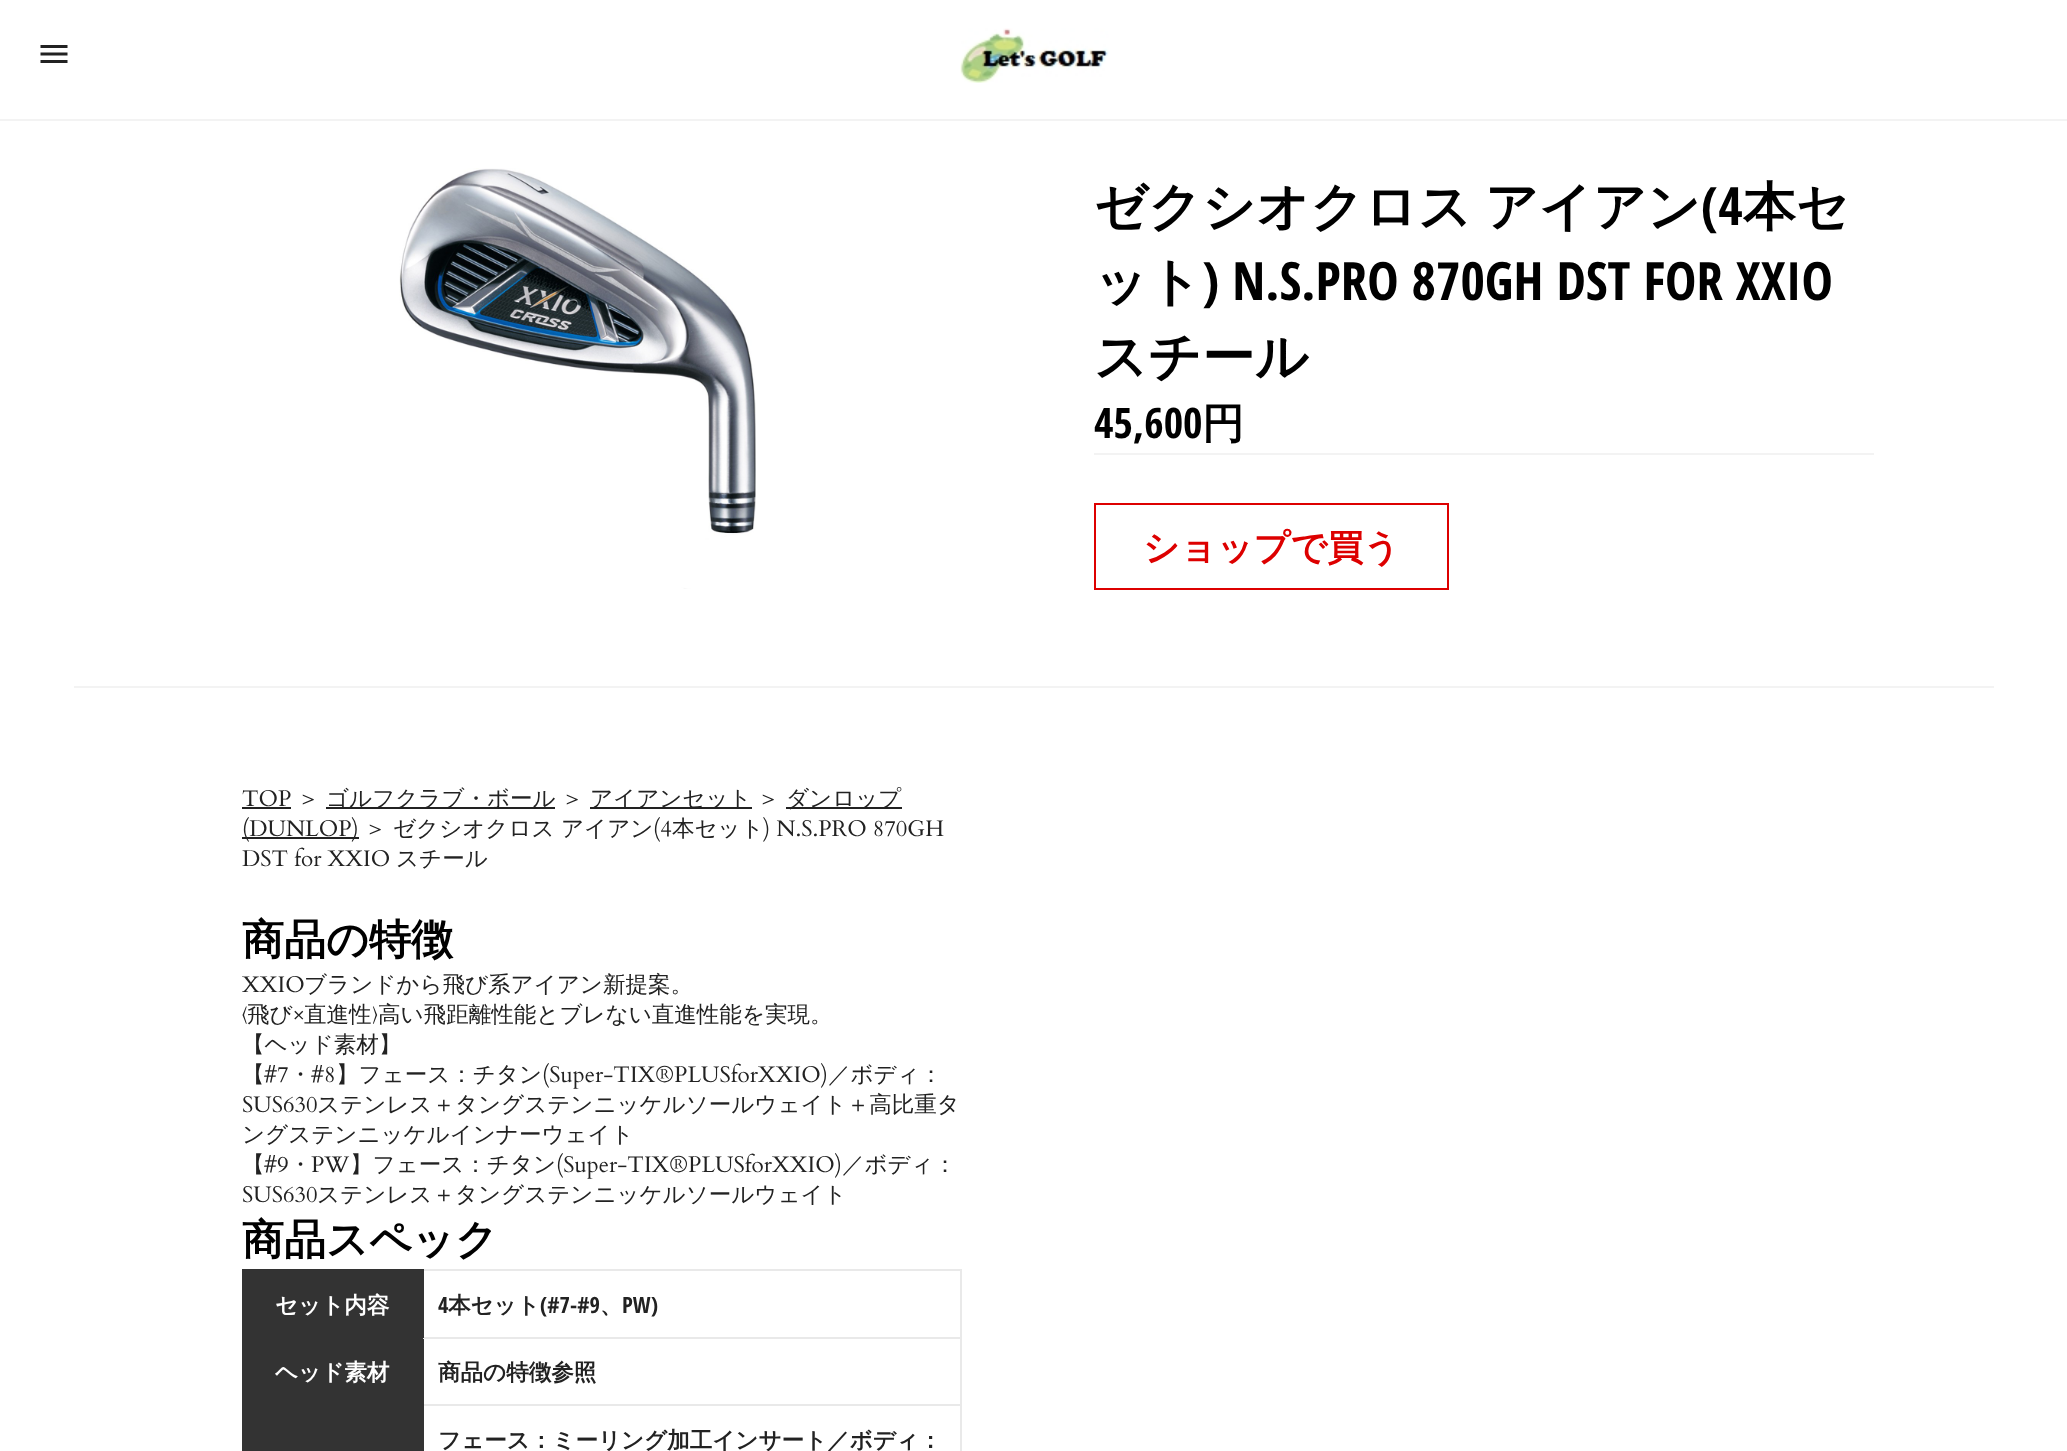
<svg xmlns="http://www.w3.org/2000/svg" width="2067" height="1451">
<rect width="100%" height="100%" fill="#fff"/>
<rect y="119" width="2067" height="2" fill="#f3f3f3"/>
<image x="40" y="45" width="28" height="18" href="media/1.png"/>
<image x="960" y="28" width="149" height="55" href="media/2.png"/>
<image x="399" y="168" width="357" height="421" href="media/3.png"/>
<text x="1094" y="225" word-spacing="-3" style="font-family:WenQuanYi Zen Hei;font-size:52.75px;font-weight:bold;fill:#000">ゼクシオクロス アイアン</text>
<text x="1701" y="225" style="font-family:Open Sans Condensed;font-size:52.75px;font-weight:bold;fill:#000">(4</text>
<text x="1743" y="225" style="font-family:WenQuanYi Zen Hei;font-size:52.75px;font-weight:bold;fill:#000">本セ</text>
<text x="1094" y="300" style="font-family:WenQuanYi Zen Hei;font-size:52.75px;font-weight:bold;fill:#000">ット</text>
<text x="1202" y="300" style="font-family:Open Sans Condensed;font-size:52.75px;font-weight:bold;fill:#000">) N.S.PRO 870GH DST FOR XXIO</text>
<text x="1094" y="375" style="font-family:WenQuanYi Zen Hei;font-size:52.75px;font-weight:bold;fill:#000">スチール</text>
<text x="1094" y="438" style="font-family:Open Sans Condensed;font-size:42px;font-weight:bold;fill:#000">45,600</text>
<text x="1202" y="438" style="font-family:WenQuanYi Zen Hei;font-size:42px;font-weight:bold;fill:#000">円</text>
<rect x="1094" y="453" width="780" height="2" fill="#f3f3f3"/>
<rect x="1095" y="504" width="353" height="85" fill="none" stroke="#d00" stroke-width="2"/>
<text x="1143" y="560" style="font-family:WenQuanYi Zen Hei;font-size:36px;font-weight:bold;fill:#d00">ショップで買う</text>
<rect x="74" y="686" width="1920" height="2" fill="#f3f3f3"/>
<text x="242" y="806" style="font-family:Cardo;font-size:22.55px;fill:#222">TOP</text>
<rect x="242" y="807" width="49" height="2" fill="#222"/>
<text x="297" y="806" style="font-family:WenQuanYi Zen Hei;font-size:22.55px;font-weight:500;fill:#222">＞</text>
<rect x="326" y="807" width="229" height="2" fill="#222"/>
<text x="326" y="806" style="font-family:WenQuanYi Zen Hei;font-size:22.55px;font-weight:500;fill:#222">ゴルフクラブ・ボール</text>
<text x="561" y="806" style="font-family:WenQuanYi Zen Hei;font-size:22.55px;font-weight:500;fill:#222">＞</text>
<rect x="590" y="807" width="162" height="2" fill="#222"/>
<text x="590" y="806" style="font-family:WenQuanYi Zen Hei;font-size:22.55px;font-weight:500;fill:#222">アイアンセット</text>
<text x="757" y="806" style="font-family:WenQuanYi Zen Hei;font-size:22.55px;font-weight:500;fill:#222">＞</text>
<rect x="786" y="807" width="116" height="2" fill="#222"/>
<text x="786" y="806" style="font-family:WenQuanYi Zen Hei;font-size:22.55px;font-weight:500;fill:#222">ダンロップ</text>
<rect x="242" y="837" width="117" height="2" fill="#222"/>
<text x="242" y="836" style="font-family:Cardo;font-size:22.55px;fill:#222">(DUNLOP)</text>
<text x="364" y="836" style="font-family:WenQuanYi Zen Hei;font-size:22.55px;font-weight:500;fill:#222">＞</text>
<text x="393" y="836" style="font-family:WenQuanYi Zen Hei;font-size:22.55px;font-weight:500;fill:#222">ゼクシオクロス</text>
<text x="561" y="836" style="font-family:WenQuanYi Zen Hei;font-size:22.55px;font-weight:500;fill:#222">アイアン</text>
<text x="653" y="836" style="font-family:Cardo;font-size:22.55px;fill:#222">(4</text>
<text x="672" y="836" style="font-family:WenQuanYi Zen Hei;font-size:22.55px;font-weight:500;fill:#222">本セット</text>
<text x="763" y="836" style="font-family:Cardo;font-size:22.55px;fill:#222">) N.S.PRO 870GH</text>
<text x="242" y="866" style="font-family:Cardo;font-size:22.55px;fill:#222">DST for XXIO</text>
<text x="396" y="866" style="font-family:WenQuanYi Zen Hei;font-size:22.55px;font-weight:500;fill:#222">スチール</text>
<text x="242" y="954" style="font-family:WenQuanYi Zen Hei;font-size:42px;font-weight:bold;fill:#000">商品の特徴</text>
<text x="242" y="992" style="font-family:Cardo;font-size:22.55px;fill:#222">XXIO</text>
<text x="304" y="992" style="font-family:WenQuanYi Zen Hei;font-size:22.55px;font-weight:500;fill:#222">ブランドから飛び系アイアン新提案。</text>
<text x="242" y="1022" style="font-family:Cardo;font-size:22.55px;fill:#222">〈</text>
<text x="247" y="1022" style="font-family:WenQuanYi Zen Hei;font-size:22.55px;font-weight:500;fill:#222">飛び</text>
<text x="293" y="1022" style="font-family:Cardo;font-size:22.55px;fill:#222">×</text>
<text x="304" y="1022" style="font-family:WenQuanYi Zen Hei;font-size:22.55px;font-weight:500;fill:#222">直進性</text>
<text x="372" y="1022" style="font-family:Cardo;font-size:22.55px;fill:#222">〉</text>
<text x="378" y="1022" style="font-family:WenQuanYi Zen Hei;font-size:22.55px;font-weight:500;fill:#222">高い飛距離性能とブレない直進性能を実現。</text>
<text x="242" y="1052" style="font-family:WenQuanYi Zen Hei;font-size:22.55px;font-weight:500;fill:#222">【ヘッド素材】</text>
<text x="242" y="1082" style="font-family:WenQuanYi Zen Hei;font-size:22.55px;font-weight:500;fill:#222">【</text>
<text x="264" y="1082" style="font-family:Cardo;font-size:22.55px;fill:#222">#7</text>
<text x="289" y="1082" style="font-family:WenQuanYi Zen Hei;font-size:22.55px;font-weight:500;fill:#222">・</text>
<text x="311" y="1082" style="font-family:Cardo;font-size:22.55px;fill:#222">#8</text>
<text x="336" y="1082" style="font-family:WenQuanYi Zen Hei;font-size:22.55px;font-weight:500;fill:#222">】フェース：チタン</text>
<text x="542" y="1082" style="font-family:Cardo;font-size:22.55px;fill:#222">(Super-TIX®PLUSforXXIO)</text>
<text x="828" y="1082" style="font-family:WenQuanYi Zen Hei;font-size:22.55px;font-weight:500;fill:#222">／ボディ：</text>
<text x="242" y="1112" style="font-family:Cardo;font-size:22.55px;fill:#222">SUS630</text>
<text x="317" y="1112" style="font-family:WenQuanYi Zen Hei;font-size:22.55px;font-weight:500;fill:#222">ステンレス＋タングステンニッケルソールウェイト＋高比重タ</text>
<text x="242" y="1142" style="font-family:WenQuanYi Zen Hei;font-size:22.55px;font-weight:500;fill:#222">ングステンニッケルインナーウェイト</text>
<text x="242" y="1172" style="font-family:WenQuanYi Zen Hei;font-size:22.55px;font-weight:500;fill:#222">【</text>
<text x="264" y="1172" style="font-family:Cardo;font-size:22.55px;fill:#222">#9</text>
<text x="289" y="1172" style="font-family:WenQuanYi Zen Hei;font-size:22.55px;font-weight:500;fill:#222">・</text>
<text x="311" y="1172" style="font-family:Cardo;font-size:22.55px;fill:#222">PW</text>
<text x="350" y="1172" style="font-family:WenQuanYi Zen Hei;font-size:22.55px;font-weight:500;fill:#222">】フェース：チタン</text>
<text x="556" y="1172" style="font-family:Cardo;font-size:22.55px;fill:#222">(Super-TIX®PLUSforXXIO)</text>
<text x="842" y="1172" style="font-family:WenQuanYi Zen Hei;font-size:22.55px;font-weight:500;fill:#222">／ボディ：</text>
<text x="242" y="1202" style="font-family:Cardo;font-size:22.55px;fill:#222">SUS630</text>
<text x="317" y="1202" style="font-family:WenQuanYi Zen Hei;font-size:22.55px;font-weight:500;fill:#222">ステンレス＋タングステンニッケルソールウェイト</text>
<text x="242" y="1254" style="font-family:WenQuanYi Zen Hei;font-size:42px;font-weight:bold;fill:#000">商品スペック</text>
<rect x="244" y="1271" width="178" height="66" fill="#333"/>
<rect x="422" y="1269" width="540" height="2" fill="#e9e9e9"/>
<rect x="242" y="1269" width="181" height="2" fill="#333"/>
<rect x="960" y="1337" width="2" height="114" fill="#e9e9e9"/>
<rect x="960" y="1269" width="2" height="69" fill="#e9e9e9"/>
<rect x="242" y="1404" width="181" height="2" fill="#333"/>
<rect x="422" y="1404" width="2" height="47" fill="#333"/>
<rect x="422" y="1404" width="540" height="2" fill="#e9e9e9"/>
<rect x="422" y="1337" width="2" height="69" fill="#333"/>
<rect x="422" y="1337" width="540" height="2" fill="#e9e9e9"/>
<rect x="422" y="1269" width="2" height="69" fill="#333"/>
<rect x="242" y="1337" width="2" height="114" fill="#333"/>
<rect x="242" y="1337" width="181" height="2" fill="#333"/>
<rect x="242" y="1269" width="2" height="69" fill="#333"/>
<text x="275" y="1313" style="font-family:WenQuanYi Zen Hei;font-size:22.55px;font-weight:bold;fill:#fff">セット内容</text>
<text x="438" y="1313" style="font-family:Open Sans Condensed;font-size:22.55px;font-weight:bold;fill:#222">4</text>
<text x="448" y="1313" style="font-family:WenQuanYi Zen Hei;font-size:22.55px;font-weight:bold;fill:#222">本セット</text>
<text x="540" y="1313" style="font-family:Open Sans Condensed;font-size:22.55px;font-weight:bold;fill:#222">(#7-#9</text>
<text x="600" y="1313" style="font-family:WenQuanYi Zen Hei;font-size:22.55px;font-weight:bold;fill:#222">、</text>
<text x="622" y="1313" style="font-family:Open Sans Condensed;font-size:22.55px;font-weight:bold;fill:#222">PW)</text>
<rect x="244" y="1339" width="178" height="65" fill="#333"/>
<text x="275" y="1380" style="font-family:WenQuanYi Zen Hei;font-size:22.55px;font-weight:bold;fill:#fff">ヘッド素材</text>
<text x="438" y="1380" style="font-family:WenQuanYi Zen Hei;font-size:22.55px;font-weight:bold;fill:#222">商品の特徴参照</text>
<rect x="244" y="1406" width="178" height="45" fill="#333"/>
<text x="438" y="1448" style="font-family:WenQuanYi Zen Hei;font-size:22.55px;font-weight:bold;fill:#222">フェース：ミーリング加工インサート／ボディ：</text>
</svg>
